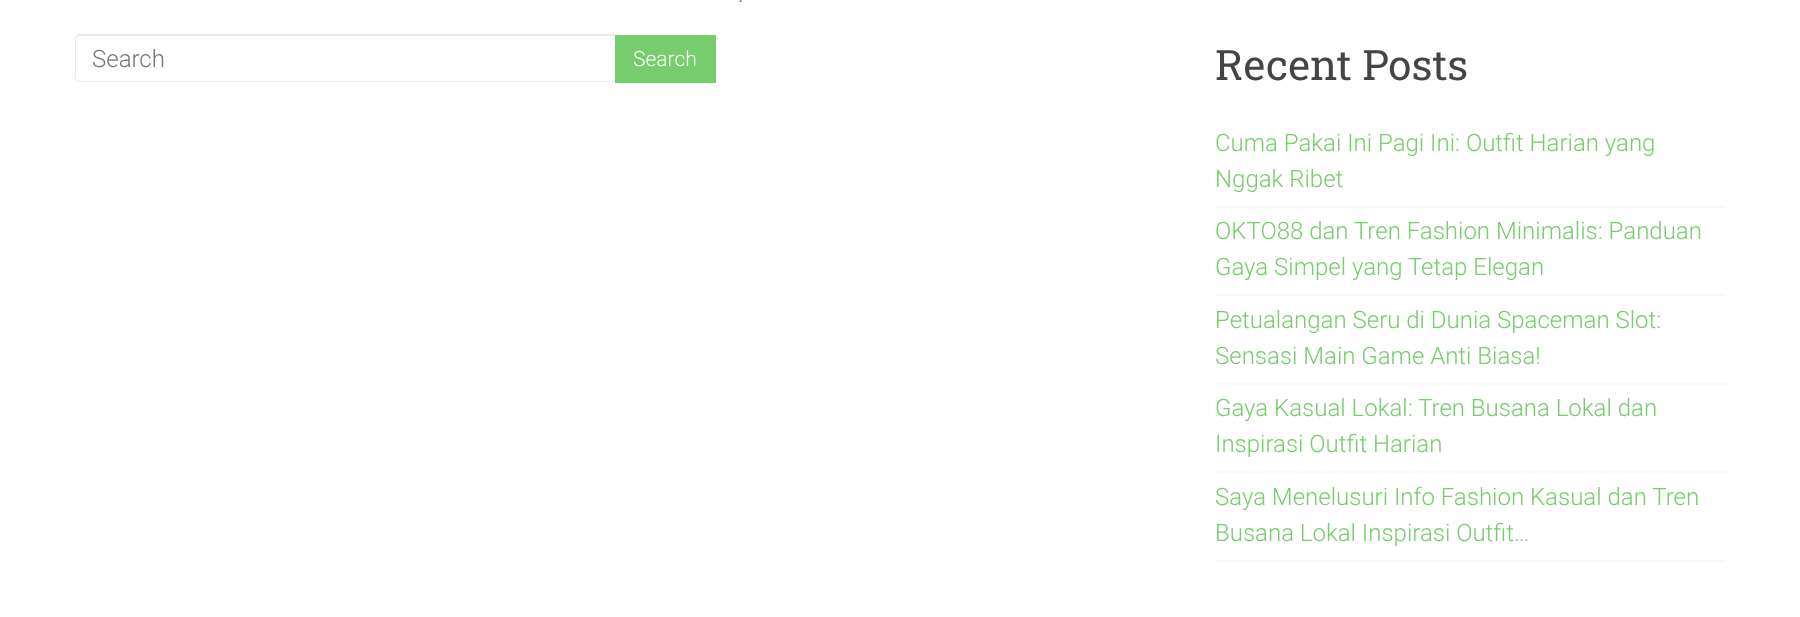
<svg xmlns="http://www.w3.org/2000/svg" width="1800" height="617">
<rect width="100%" height="100%" fill="#fff"/>
<text x="738" y="2" style="font-family:Roboto;font-size:24px;font-weight:300;fill:#666">.</text>
<path d="M80 34h535v48h-535c-3 0-5-2-5-4v-39c0-2 2-5 5-5zm0 2h535v45h-535c-2 0-4-1-4-3v-39c0-2 2-3 4-3z" fill="#eaeaea" fill-rule="evenodd"/>
<text x="92" y="67" style="font-family:Roboto;font-size:24px;font-weight:300;fill:#757575">Search</text>
<rect x="615" y="35" width="101" height="48" fill="#77cc6d"/>
<text x="633" y="66" style="font-family:Roboto;font-size:21px;font-weight:300;fill:#fff">Search</text>
<text x="1215" y="80" style="font-family:Roboto Slab;font-size:42px;fill:#444">Recent Posts</text>
<rect x="1215" y="206" width="510" height="2" fill="#f8f8f8"/>
<text x="1215" y="151" style="font-family:Roboto;font-size:24px;font-weight:300;fill:#77cc6d">Cuma Pakai Ini Pagi Ini: Outfit Harian yang</text>
<text x="1215" y="187" style="font-family:Roboto;font-size:24px;font-weight:300;fill:#77cc6d">Nggak Ribet</text>
<rect x="1215" y="294" width="510" height="2" fill="#f8f8f8"/>
<text x="1215" y="239" style="font-family:Roboto;font-size:24px;font-weight:300;fill:#77cc6d">OKTO88 dan Tren Fashion Minimalis: Panduan</text>
<text x="1215" y="275" style="font-family:Roboto;font-size:24px;font-weight:300;fill:#77cc6d">Gaya Simpel yang Tetap Elegan</text>
<rect x="1215" y="383" width="510" height="2" fill="#f8f8f8"/>
<text x="1215" y="328" style="font-family:Roboto;font-size:24px;font-weight:300;fill:#77cc6d">Petualangan Seru di Dunia Spaceman Slot:</text>
<text x="1215" y="364" style="font-family:Roboto;font-size:24px;font-weight:300;fill:#77cc6d">Sensasi Main Game Anti Biasa!</text>
<rect x="1215" y="471" width="510" height="2" fill="#f8f8f8"/>
<text x="1215" y="416" style="font-family:Roboto;font-size:24px;font-weight:300;fill:#77cc6d">Gaya Kasual Lokal: Tren Busana Lokal dan</text>
<text x="1215" y="452" style="font-family:Roboto;font-size:24px;font-weight:300;fill:#77cc6d">Inspirasi Outfit Harian</text>
<rect x="1215" y="560" width="510" height="2" fill="#f8f8f8"/>
<text x="1215" y="505" style="font-family:Roboto;font-size:24px;font-weight:300;fill:#77cc6d">Saya Menelusuri Info Fashion Kasual dan Tren</text>
<text x="1215" y="541" style="font-family:Roboto;font-size:24px;font-weight:300;fill:#77cc6d">Busana Lokal Inspirasi Outfit…</text>
</svg>
